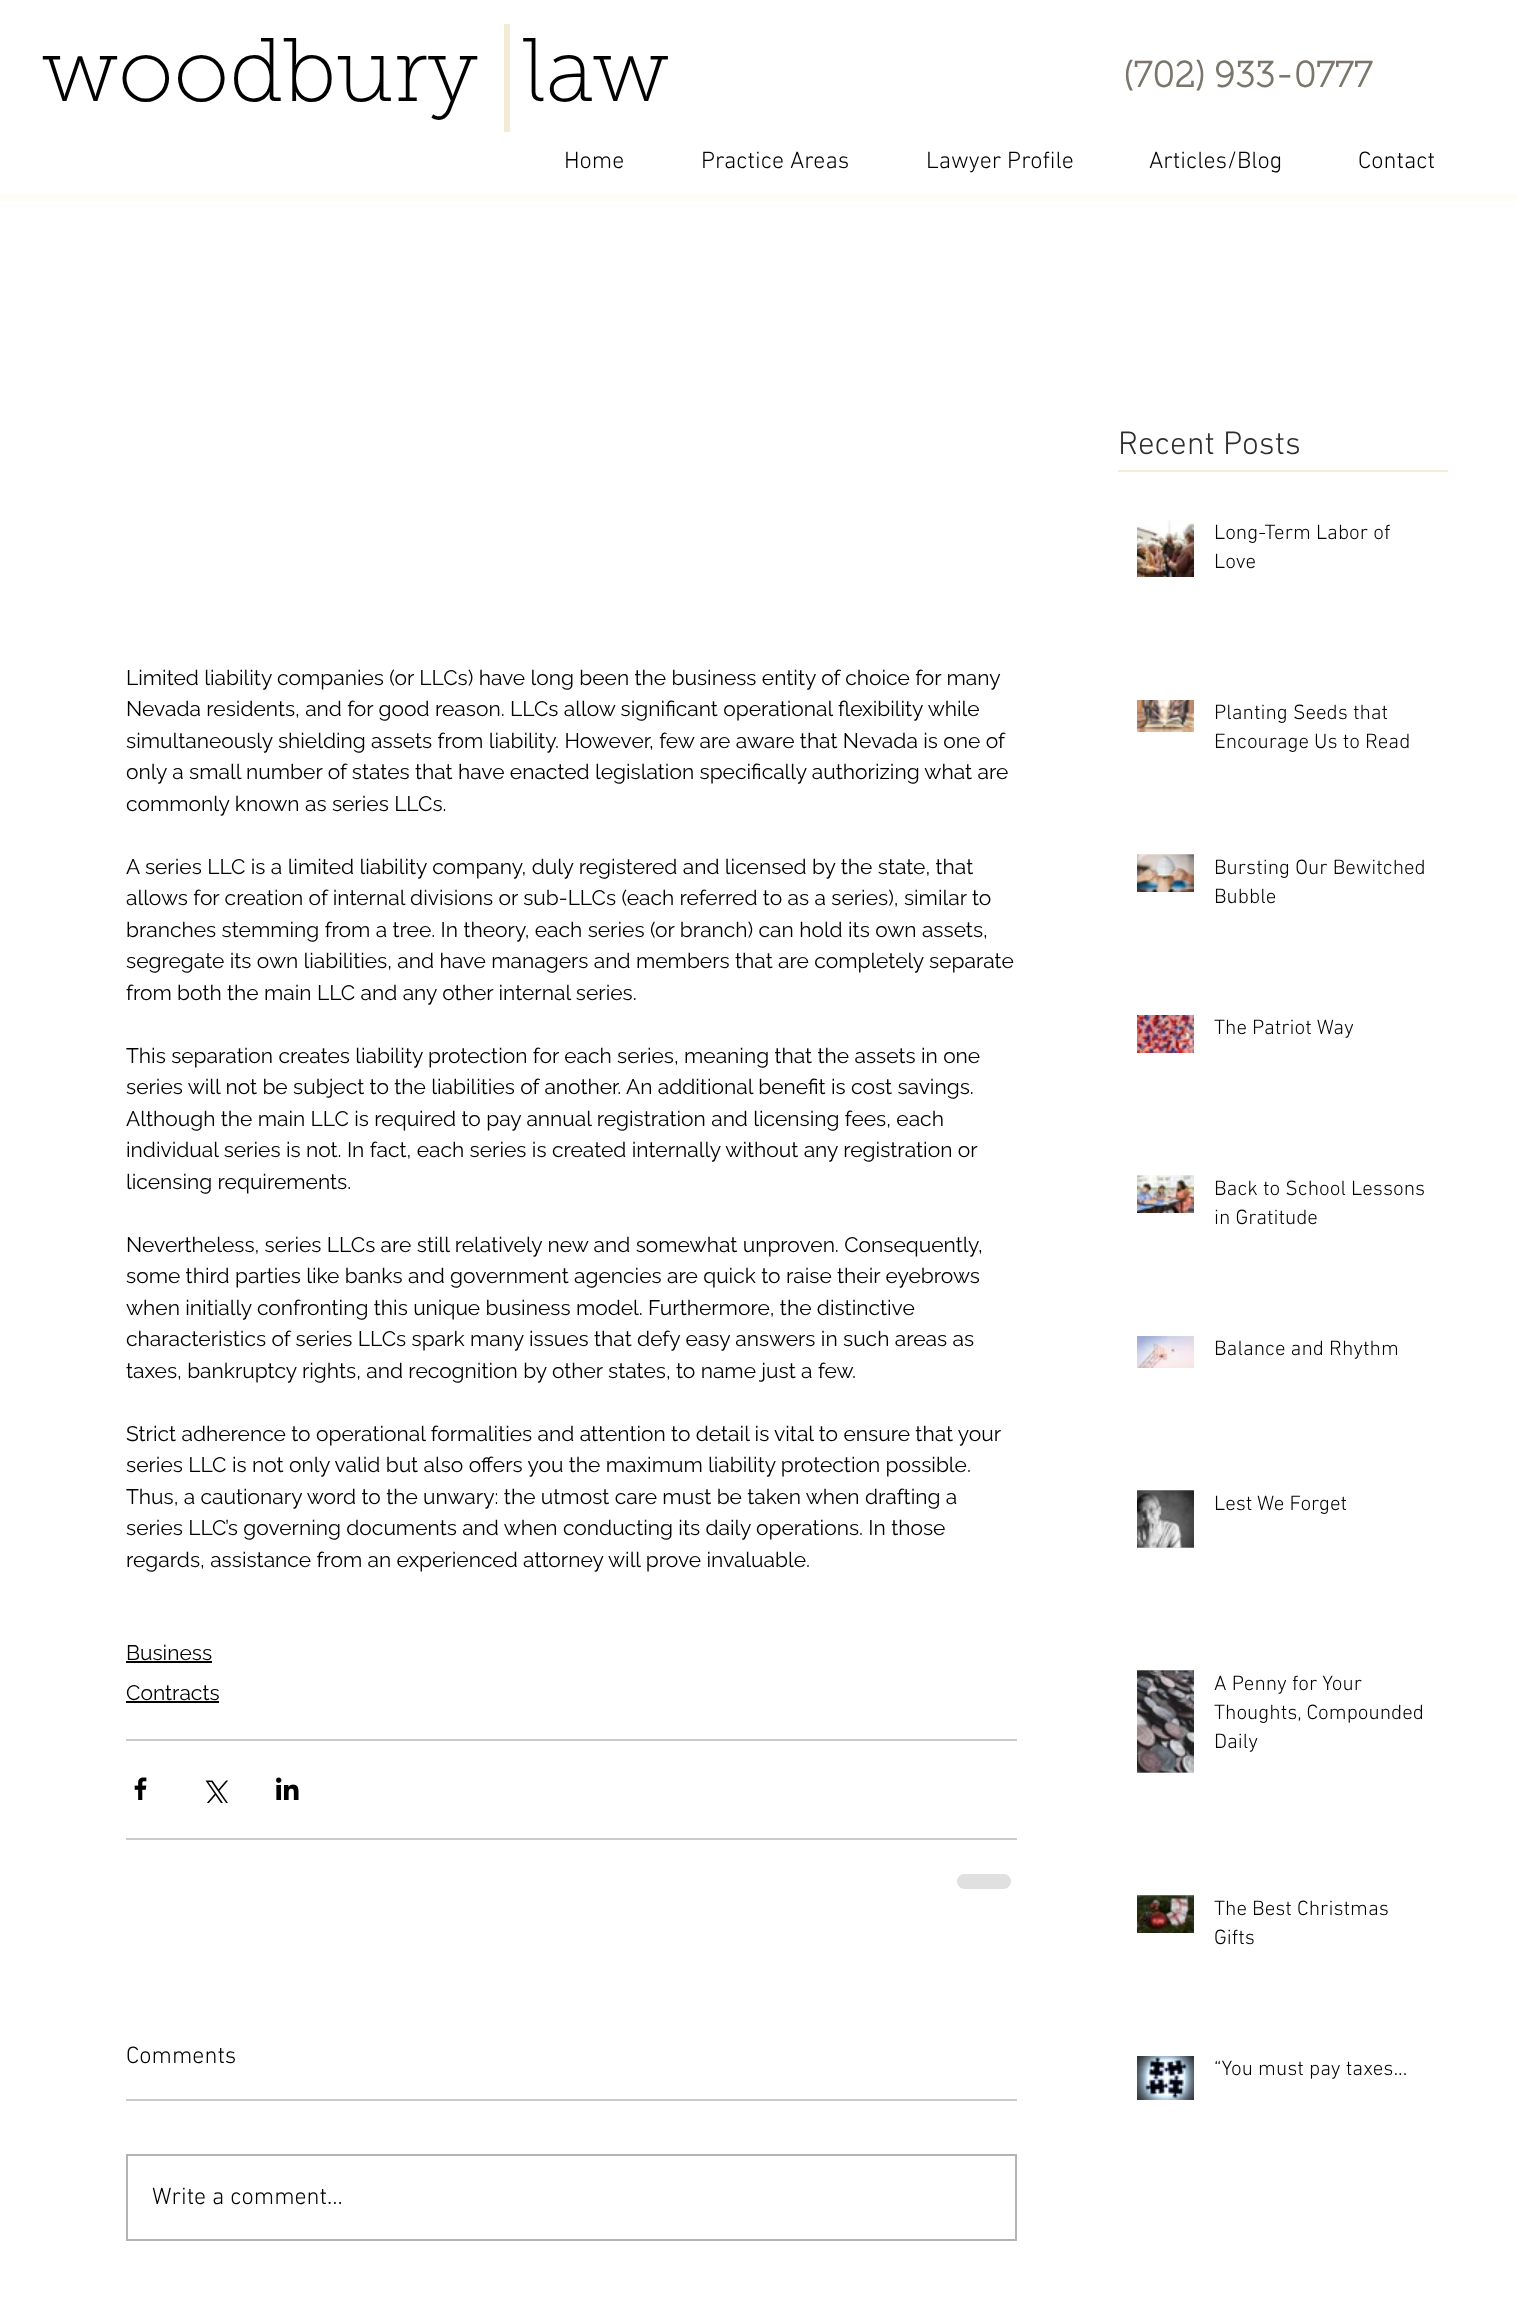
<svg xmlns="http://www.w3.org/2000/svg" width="1517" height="2320">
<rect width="100%" height="100%" fill="#fff"/>
<text x="42" y="101" style="font-family:'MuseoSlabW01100';font-size:90px;font-weight:100;fill:#000" xml:space="preserve">woodbury  law</text>
<rect x="504" y="24" width="6" height="108" fill="#f4ebd7"/>
<text x="1123" y="87" style="font-family:'MuseoSlabW01100';font-size:36px;font-weight:bold;fill:#7a766c">(702) 933-0777</text>
<text x="564" y="168" style="font-family:'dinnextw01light';font-size:24px;font-weight:300;fill:#000">Home</text>
<text x="701" y="168" style="font-family:'dinnextw01light';font-size:24px;font-weight:300;fill:#000">Practice Areas</text>
<text x="926" y="168" style="font-family:'dinnextw01light';font-size:24px;font-weight:300;fill:#000">Lawyer Profile</text>
<text x="1149" y="168" style="font-family:'dinnextw01light';font-size:24px;font-weight:300;fill:#000">Articles/Blog</text>
<text x="1358" y="168" style="font-family:'dinnextw01light';font-size:24px;font-weight:300;fill:#000">Contact</text>
<rect y="194" width="1517" height="7" fill="#fffdf7"/>
<text x="1118" y="454" style="font-family:'dinnextw01light';font-size:33px;font-weight:300;fill:#2f2e2e">Recent Posts</text>
<rect x="1118" y="470" width="330" height="2" fill="#f4ebd7"/>
<text x="126" y="685" style="font-family:Raleway;font-size:21px;fill:#000">Limited liability companies (or LLCs) have long been the business entity of choice for many</text>
<text x="126" y="716" style="font-family:Raleway;font-size:21px;fill:#000">Nevada residents, and for good reason. LLCs allow significant operational flexibility while</text>
<text x="126" y="748" style="font-family:Raleway;font-size:21px;fill:#000">simultaneously shielding assets from liability. However, few are aware that Nevada is one of</text>
<text x="126" y="779" style="font-family:Raleway;font-size:21px;fill:#000">only a small number of states that have enacted legislation specifically authorizing what are</text>
<text x="126" y="811" style="font-family:Raleway;font-size:21px;fill:#000">commonly known as series LLCs.</text>
<text x="126" y="874" style="font-family:Raleway;font-size:21px;fill:#000">A series LLC is a limited liability company, duly registered and licensed by the state, that</text>
<text x="126" y="905" style="font-family:Raleway;font-size:21px;fill:#000">allows for creation of internal divisions or sub-LLCs (each referred to as a series), similar to</text>
<text x="126" y="937" style="font-family:Raleway;font-size:21px;fill:#000">branches stemming from a tree. In theory, each series (or branch) can hold its own assets,</text>
<text x="126" y="968" style="font-family:Raleway;font-size:21px;fill:#000">segregate its own liabilities, and have managers and members that are completely separate</text>
<text x="126" y="1000" style="font-family:Raleway;font-size:21px;fill:#000">from both the main LLC and any other internal series.</text>
<text x="126" y="1063" style="font-family:Raleway;font-size:21px;fill:#000">This separation creates liability protection for each series, meaning that the assets in one</text>
<text x="126" y="1094" style="font-family:Raleway;font-size:21px;fill:#000">series will not be subject to the liabilities of another. An additional benefit is cost savings.</text>
<text x="126" y="1126" style="font-family:Raleway;font-size:21px;fill:#000">Although the main LLC is required to pay annual registration and licensing fees, each</text>
<text x="126" y="1157" style="font-family:Raleway;font-size:21px;fill:#000">individual series is not. In fact, each series is created internally without any registration or</text>
<text x="126" y="1189" style="font-family:Raleway;font-size:21px;fill:#000">licensing requirements.</text>
<text x="126" y="1252" style="font-family:Raleway;font-size:21px;fill:#000">Nevertheless, series LLCs are still relatively new and somewhat unproven. Consequently,</text>
<text x="126" y="1283" style="font-family:Raleway;font-size:21px;fill:#000">some third parties like banks and government agencies are quick to raise their eyebrows</text>
<text x="126" y="1315" style="font-family:Raleway;font-size:21px;fill:#000">when initially confronting this unique business model. Furthermore, the distinctive</text>
<text x="126" y="1346" style="font-family:Raleway;font-size:21px;fill:#000">characteristics of series LLCs spark many issues that defy easy answers in such areas as</text>
<text x="126" y="1378" style="font-family:Raleway;font-size:21px;fill:#000">taxes, bankruptcy rights, and recognition by other states, to name just a few.</text>
<text x="126" y="1441" style="font-family:Raleway;font-size:21px;fill:#000">Strict adherence to operational formalities and attention to detail is vital to ensure that your</text>
<text x="126" y="1472" style="font-family:Raleway;font-size:21px;fill:#000">series LLC is not only valid but also offers you the maximum liability protection possible.</text>
<text x="126" y="1504" style="font-family:Raleway;font-size:21px;fill:#000">Thus, a cautionary word to the unwary: the utmost care must be taken when drafting a</text>
<text x="126" y="1535" style="font-family:Raleway;font-size:21px;fill:#000">series LLC’s governing documents and when conducting its daily operations. In those</text>
<text x="126" y="1567" style="font-family:Raleway;font-size:21px;fill:#000">regards, assistance from an experienced attorney will prove invaluable.</text>
<text x="126" y="1660" style="font-family:Raleway;font-size:21px;fill:#000">Business</text>
<rect x="126" y="1661" width="86" height="2" fill="#000"/>
<text x="126" y="1700" style="font-family:Raleway;font-size:21px;fill:#000">Contracts</text>
<rect x="126" y="1701" width="93" height="2" fill="#000"/>
<rect x="126" y="1739" width="891" height="2" fill="#ccc"/>
<image x="134" y="1777" width="13" height="23" href="media/1.png"/>
<image x="205" y="1780" width="23" height="23" href="media/2.png"/>
<image x="276" y="1777" width="23" height="23" href="media/3.png"/>
<rect x="126" y="1838" width="891" height="2" fill="#ccc"/>
<rect x="957" y="1874" width="54" height="15" rx="7.5" fill="#e0e0e0"/>
<text x="126" y="2063" style="font-family:'dinnextw01light';font-size:24px;font-weight:300;fill:#000">Comments</text>
<rect x="126" y="2099" width="891" height="2" fill="#ccc"/>
<rect x="127" y="2155" width="889" height="85" fill="none" stroke="#b3b3b3" stroke-width="2"/>
<text x="152" y="2204" style="font-family:'dinnextw01light';font-size:24px;font-weight:300;fill:#000">Write a comment...</text>
<image x="1137" y="520" width="57" height="57" href="media/4.png"/>
<text x="1214" y="539" style="font-family:'dinnextw01light';font-size:21px;font-weight:300;fill:#000">Long-Term Labor of</text>
<text x="1214" y="568" style="font-family:'dinnextw01light';font-size:21px;font-weight:300;fill:#000">Love</text>
<image x="1137" y="700" width="57" height="32" href="media/5.png"/>
<text x="1214" y="719" style="font-family:'dinnextw01light';font-size:21px;font-weight:300;fill:#000">Planting Seeds that</text>
<text x="1214" y="748" style="font-family:'dinnextw01light';font-size:21px;font-weight:300;fill:#000">Encourage Us to Read</text>
<image x="1137" y="854" width="57" height="1" href="media/6.png"/>
<image x="1137" y="854" width="57" height="38" href="media/7.png"/>
<text x="1214" y="874" style="font-family:'dinnextw01light';font-size:21px;font-weight:300;fill:#000">Bursting Our Bewitched</text>
<text x="1214" y="903" style="font-family:'dinnextw01light';font-size:21px;font-weight:300;fill:#000">Bubble</text>
<image x="1137" y="1015" width="57" height="38" href="media/8.png"/>
<text x="1214" y="1034" style="font-family:'dinnextw01light';font-size:21px;font-weight:300;fill:#000">The Patriot Way</text>
<image x="1137" y="1175" width="57" height="1" href="media/9.png"/>
<image x="1137" y="1175" width="57" height="38" href="media/10.png"/>
<text x="1214" y="1195" style="font-family:'dinnextw01light';font-size:21px;font-weight:300;fill:#000">Back to School Lessons</text>
<text x="1214" y="1224" style="font-family:'dinnextw01light';font-size:21px;font-weight:300;fill:#000">in Gratitude</text>
<image x="1137" y="1336" width="57" height="32" href="media/11.png"/>
<text x="1214" y="1355" style="font-family:'dinnextw01light';font-size:21px;font-weight:300;fill:#000">Balance and Rhythm</text>
<image x="1137" y="1490" width="57" height="58" href="media/12.png"/>
<image x="1137" y="1490" width="57" height="58" href="media/13.png"/>
<text x="1214" y="1510" style="font-family:'dinnextw01light';font-size:21px;font-weight:300;fill:#000">Lest We Forget</text>
<image x="1137" y="1670" width="57" height="103" href="media/14.png"/>
<image x="1137" y="1670" width="57" height="103" href="media/15.png"/>
<text x="1214" y="1690" style="font-family:'dinnextw01light';font-size:21px;font-weight:300;fill:#000">A Penny for Your</text>
<text x="1214" y="1719" style="font-family:'dinnextw01light';font-size:21px;font-weight:300;fill:#000">Thoughts, Compounded</text>
<text x="1214" y="1748" style="font-family:'dinnextw01light';font-size:21px;font-weight:300;fill:#000">Daily</text>
<image x="1137" y="1895" width="57" height="1" href="media/16.png"/>
<image x="1137" y="1895" width="57" height="38" href="media/17.png"/>
<text x="1214" y="1915" style="font-family:'dinnextw01light';font-size:21px;font-weight:300;fill:#000">The Best Christmas</text>
<text x="1214" y="1944" style="font-family:'dinnextw01light';font-size:21px;font-weight:300;fill:#000">Gifts</text>
<image x="1137" y="2056" width="57" height="44" href="media/18.png"/>
<text x="1214" y="2075" style="font-family:'dinnextw01light';font-size:21px;font-weight:300;fill:#000">“You must pay taxes...</text>
</svg>
